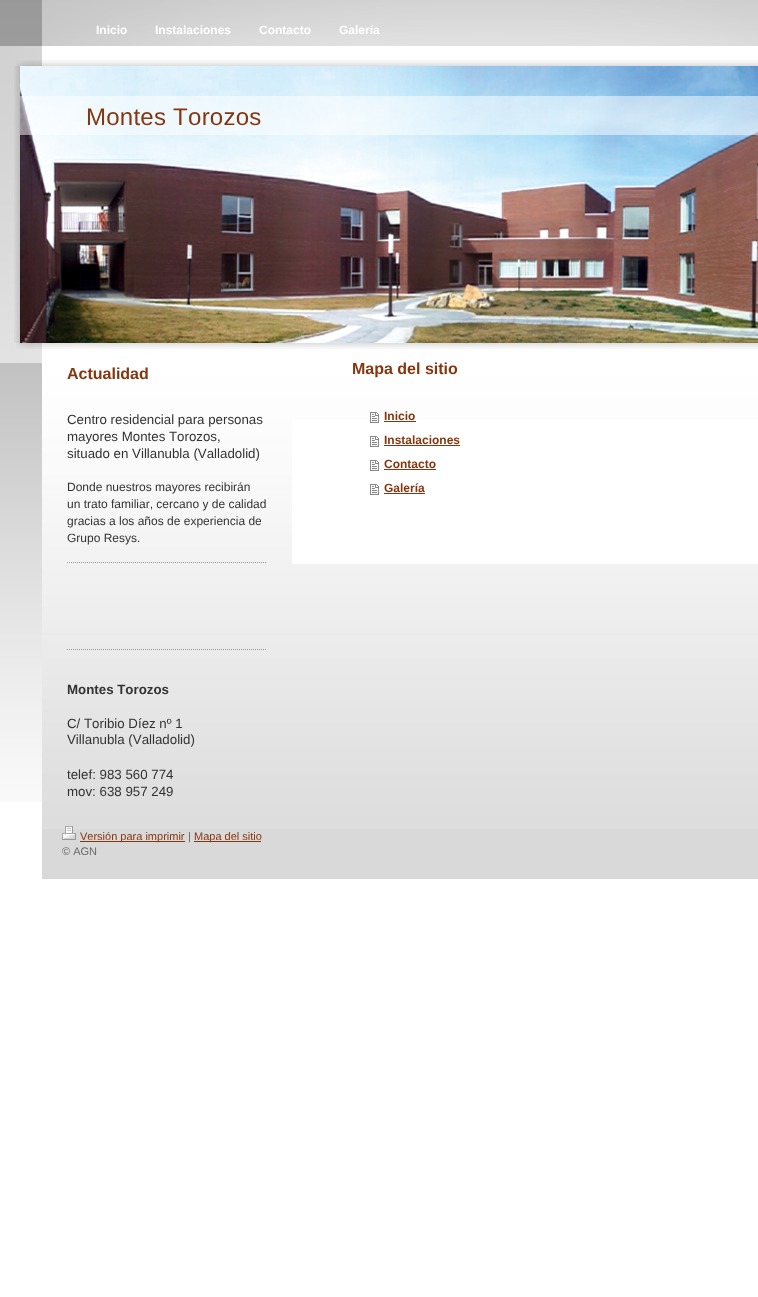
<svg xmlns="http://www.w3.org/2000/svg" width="758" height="1297">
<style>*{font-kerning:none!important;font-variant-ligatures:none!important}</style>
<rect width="100%" height="100%" fill="#fff"/>
<image x="0" y="0" width="758" height="802" href="media/1.png"/>
<image x="42" y="0" width="716" height="46" href="media/2.png"/>
<text x="96" y="34" style="font-family:Liberation Sans;font-size:12px;font-weight:bold;fill:#fff">Inicio</text>
<text x="155" y="34" style="font-family:Liberation Sans;font-size:12px;font-weight:bold;fill:#fff">Instalaciones</text>
<text x="259" y="34" style="font-family:Liberation Sans;font-size:12px;font-weight:bold;fill:#fff">Contacto</text>
<text x="339" y="34" style="font-family:Liberation Sans;font-size:12px;font-weight:bold;fill:#fff">Galería</text>
<image x="0" y="46" width="758" height="317" href="media/3.png"/>
<image x="16" y="60" width="742" height="6" href="media/4.png"/>
<image x="14" y="66" width="6" height="277" href="media/5.png"/>
<image x="20" y="66" width="738" height="277" href="media/6.png"/>
<rect x="20" y="96" width="738" height="39" fill="#ffffff80"/>
<text x="86" y="125" style="font-family:Liberation Sans;font-size:24px;letter-spacing:0.25px;fill:#84360f">Montes Torozos</text>
<image x="16" y="343" width="742" height="6" href="media/7.png"/>
<rect x="42" y="829" width="716" height="50" fill="#d9d9d9"/>
<image x="42" y="363" width="716" height="466" href="media/8.png"/>
<text x="67" y="379" style="font-family:Liberation Sans;font-size:16px;font-weight:bold;fill:#84360f">Actualidad</text>
<text x="67" y="424" style="font-family:Liberation Sans;font-size:13.3px;fill:#333">Centro residencial para personas</text>
<text x="67" y="441" style="font-family:Liberation Sans;font-size:13.3px;fill:#333">mayores Montes Torozos,</text>
<text x="67" y="458" style="font-family:Liberation Sans;font-size:13.3px;fill:#333">situado en Villanubla (Valladolid)</text>
<text x="67" y="491" style="font-family:Liberation Sans;font-size:12px;fill:#333">Donde nuestros mayores recibirán</text>
<text x="67" y="508" style="font-family:Liberation Sans;font-size:12px;fill:#333">un trato familiar, cercano y de calidad</text>
<text x="67" y="525" style="font-family:Liberation Sans;font-size:12px;fill:#333">gracias a los años de experiencia de</text>
<text x="67" y="542" style="font-family:Liberation Sans;font-size:12px;fill:#333">Grupo Resys.</text>
<path d="M67 562.5h200" fill="none" stroke="#999" stroke-dasharray="1 1"/>
<path d="M67 649.5h200" fill="none" stroke="#999" stroke-dasharray="1 1"/>
<text x="67" y="694" style="font-family:Liberation Sans;font-size:13.3px;font-weight:bold;fill:#333">Montes Torozos</text>
<text x="67" y="728" style="font-family:Liberation Sans;font-size:13.3px;fill:#333">C/ Toribio Díez nº 1</text>
<text x="67" y="744" style="font-family:Liberation Sans;font-size:13.3px;fill:#333">Villanubla (Valladolid)</text>
<text x="67" y="779" style="font-family:Liberation Sans;font-size:13.3px;fill:#333">telef: 983 560 774</text>
<text x="67" y="796" style="font-family:Liberation Sans;font-size:13.3px;fill:#333">mov: 638 957 249</text>
<rect x="292" y="419" width="466" height="145" fill="#fff"/>
<text x="352" y="374" style="font-family:Liberation Sans;font-size:16px;font-weight:bold;fill:#84360f">Mapa del sitio</text>
<image x="370" y="412" width="9" height="11" href="media/9.png"/>
<text x="384" y="420" style="font-family:Liberation Sans;font-size:12px;font-weight:bold;fill:#84360f">Inicio</text>
<rect x="384" y="421" width="32" height="1" fill="#84360f"/>
<image x="370" y="436" width="9" height="11" href="media/9.png"/>
<text x="384" y="444" style="font-family:Liberation Sans;font-size:12px;font-weight:bold;fill:#84360f">Instalaciones</text>
<rect x="384" y="445" width="76" height="1" fill="#84360f"/>
<image x="370" y="460" width="9" height="11" href="media/9.png"/>
<text x="384" y="468" style="font-family:Liberation Sans;font-size:12px;font-weight:bold;fill:#84360f">Contacto</text>
<rect x="384" y="469" width="52" height="1" fill="#84360f"/>
<image x="370" y="484" width="9" height="11" href="media/9.png"/>
<text x="384" y="492" style="font-family:Liberation Sans;font-size:12px;font-weight:bold;fill:#84360f">Galería</text>
<rect x="384" y="493" width="41" height="1" fill="#84360f"/>
<image x="62" y="826" width="14" height="14" href="media/10.png"/>
<rect x="80" y="841" width="105" height="1" fill="#84360f"/>
<text x="80" y="840" style="font-family:Liberation Sans;font-size:11px;fill:#84360f">Versión para imprimir</text>
<text x="188" y="840" style="font-family:Liberation Sans;font-size:11px;fill:#666">|</text>
<rect x="194" y="841" width="67" height="1" fill="#84360f"/>
<text x="194" y="840" style="font-family:Liberation Sans;font-size:11px;fill:#84360f">Mapa del sitio</text>
<text x="62" y="855" style="font-family:Liberation Sans;font-size:11px;fill:#666">© AGN</text>
</svg>
